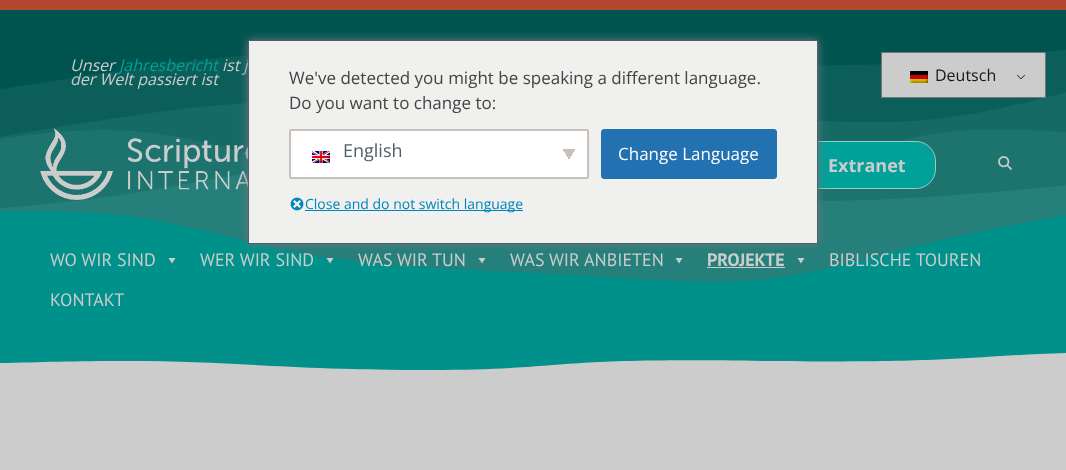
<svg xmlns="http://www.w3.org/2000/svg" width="1066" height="470">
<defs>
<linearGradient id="g1" gradientUnits="userSpaceOnUse" x1="567" y1="152" x2="577" y2="158"><stop offset="0.5" stop-color="#c9c0bb"/><stop offset="0.5" stop-color="#fff"/></linearGradient>
<linearGradient id="g2" gradientUnits="userSpaceOnUse" x1="561" y1="158" x2="571" y2="152"><stop offset="0.5" stop-color="#fff"/><stop offset="0.5" stop-color="#c9c0bb"/></linearGradient>
</defs>
<rect width="100%" height="100%" fill="#ccc"/>
<image x="0" y="10" width="1066" height="340" href="media/1.png"/>
<rect width="1066" height="10" fill="#b54730"/>
<text x="70" y="71" style="font-family:Open Sans;font-size:16px;font-style:italic;fill:#ccc">Unser</text>
<text x="119" y="71" style="font-family:Open Sans;font-size:16px;font-style:italic;fill:#00a199">Jahresbericht</text>
<text x="222" y="71" style="font-family:Open Sans;font-size:16px;font-style:italic;fill:#ccc">ist j</text>
<text x="70" y="85" style="font-family:Open Sans;font-size:16px;font-style:italic;fill:#ccc">der Welt passiert ist</text>
<rect x="881" y="52" width="165" height="46" rx="2" fill="#ccc"/>
<image x="1017" y="74" width="8" height="5" href="media/2.png"/>
<rect x="881.5" y="52.5" width="164" height="45" rx="1.5" fill="none" stroke="#767676"/>
<image x="910" y="71" width="18" height="12" href="media/3.png"/>
<text x="935" y="81" style="font-family:Open Sans;font-size:16px;fill:#181818">Deutsch</text>
<image x="40" y="128" width="208" height="72" href="media/4.png"/>
<rect x="797.5" y="141.5" width="138" height="47" rx="19.5" fill="#00a199" stroke="#9acac5"/>
<text x="828" y="172" style="font-family:Open Sans;font-size:18px;font-weight:bold;fill:#ccc">Extranet</text>
<image x="998" y="156" width="14" height="14" href="media/5.png"/>
<text x="50" y="266" style="font-family:PT Sans;font-size:18px;fill:#ccc">WO WIR SIND</text>
<path d="M175.5 258l-3.5 5.5l-3.5-5.5z" fill="#ccc"/>
<text x="200" y="266" style="font-family:PT Sans;font-size:18px;fill:#ccc">WER WIR SIND</text>
<path d="M333.5 258l-3.5 5.5l-3.5-5.5z" fill="#ccc"/>
<text x="358" y="266" style="font-family:PT Sans;font-size:18px;fill:#ccc">WAS WIR TUN</text>
<path d="M485.5 258l-3.5 5.5l-3.5-5.5z" fill="#ccc"/>
<text x="510" y="266" style="font-family:PT Sans;font-size:18px;fill:#ccc">WAS WIR ANBIETEN</text>
<path d="M682.5 258l-3.5 5.5l-3.5-5.5z" fill="#ccc"/>
<text x="707" y="266" style="font-family:PT Sans;font-size:18px;font-weight:bold;fill:#ccc">PROJEKTE</text>
<rect x="707" y="267" width="78" height="1" fill="#ccc"/>
<path d="M804.5 258l-3.5 5.5l-3.5-5.5z" fill="#ccc"/>
<text x="829" y="266" style="font-family:PT Sans;font-size:18px;fill:#ccc">BIBLISCHE TOUREN</text>
<text x="50" y="306" style="font-family:PT Sans;font-size:18px;fill:#ccc">KONTAKT</text>
<path d="M-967 350h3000c-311 0-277 12-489 12c-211 0-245-10-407-10c-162 0-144 12-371 9c-226-4-195 9-337 9c-141 0-196-9-300-9c-104 0-124 4-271 3c-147-1-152-10-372-8c-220 3-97-6-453-6z" fill="#02918a"/>
<rect x="248" y="40" width="570" height="204" fill="#6c7781" filter="blur(5px)"/>
<rect x="248.5" y="40.5" width="569" height="203" fill="#f0f0ee" stroke="#4c6066"/>
<text x="289" y="84" style="font-family:Open Sans;font-size:17px;fill:#444">We've detected you might be speaking a different language.</text>
<text x="289" y="109" style="font-family:Open Sans;font-size:17px;fill:#444">Do you want to change to:</text>
<rect x="289" y="129" width="300" height="50" rx="2" fill="#fff"/>
<rect x="569" y="149" width="6" height="12" fill="url(#g1)"/>
<rect x="563" y="149" width="6" height="12" fill="url(#g2)"/>
<rect x="290" y="130" width="298" height="48" rx="1" fill="none" stroke="#c9c0bb" stroke-width="2"/>
<image x="312" y="151" width="18" height="12" href="media/6.png"/>
<text x="343" y="157" style="font-family:Open Sans;font-size:18px;fill:#4c6066">English</text>
<rect x="601.5" y="129.5" width="175" height="49" rx="2.5" fill="#2271b1" stroke="#2271b1"/>
<text x="618" y="160" style="font-family:Open Sans;font-size:17px;fill:#fff">Change Language</text>
<image x="290" y="197" width="14" height="14" href="media/7.png"/>
<rect x="305" y="210" width="218" height="1" fill="#0085ba"/>
<text x="305" y="209" style="font-family:Open Sans;font-size:14px;fill:#0085ba">Close and do not switch language</text>
</svg>
